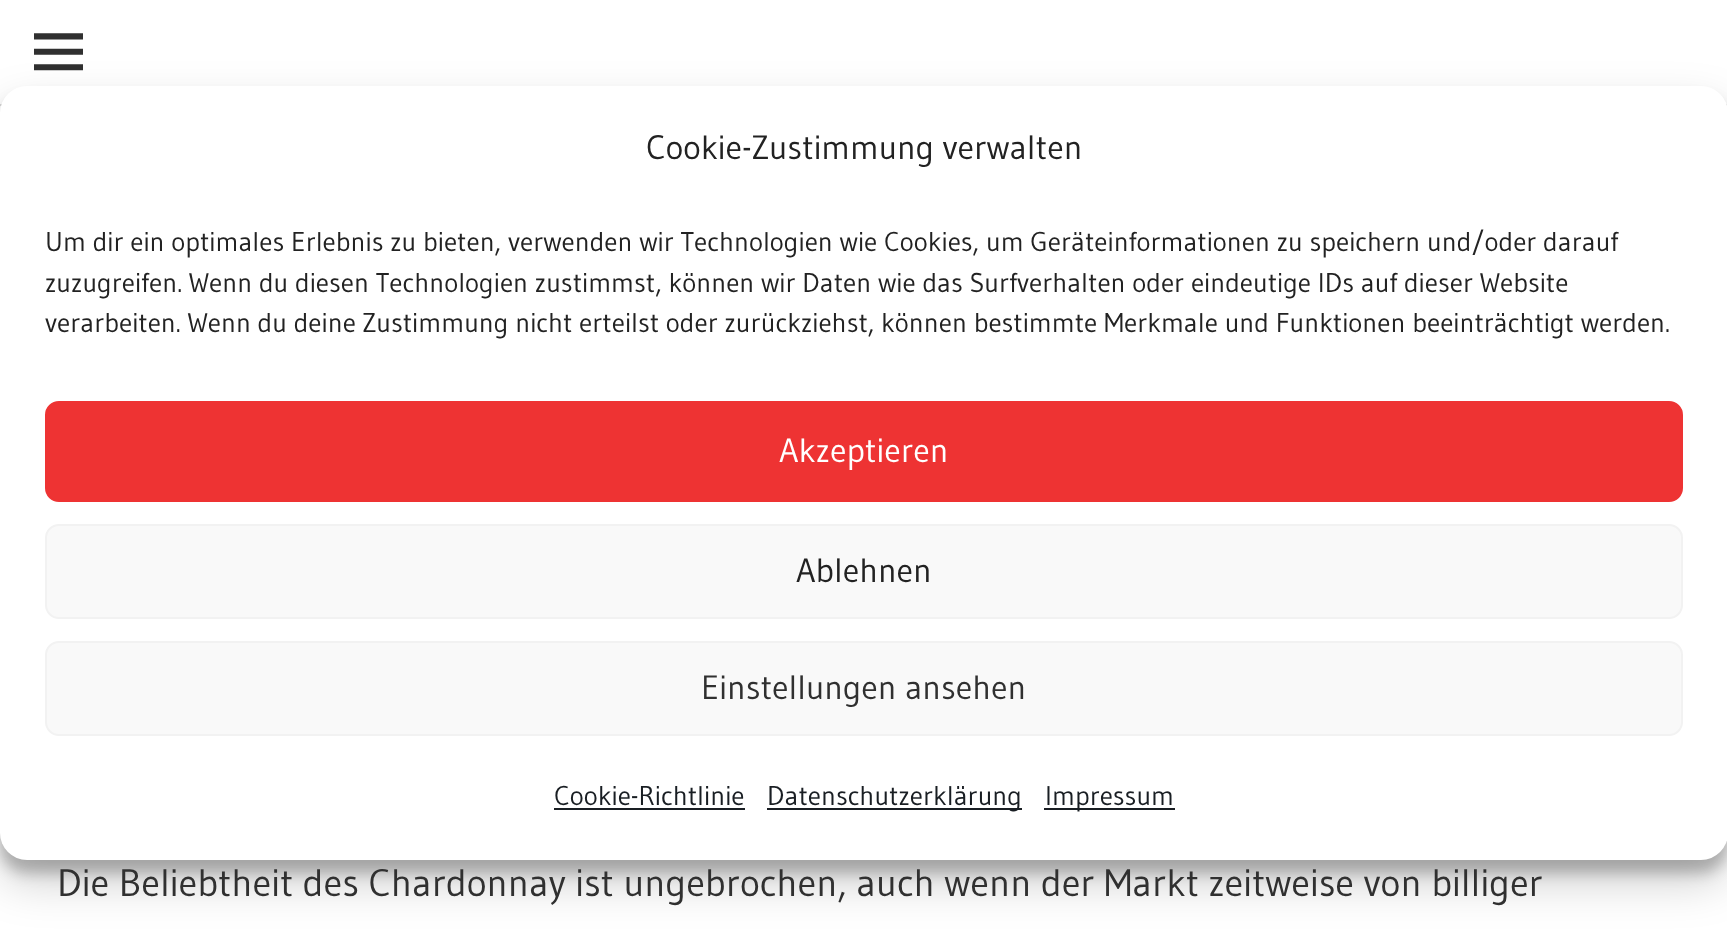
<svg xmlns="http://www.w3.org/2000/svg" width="1727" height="942">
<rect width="100%" height="100%" fill="#fff"/>
<rect y="104" width="1727" height="2" fill="#d9d9d9"/>
<image x="34" y="33" width="49" height="38" href="media/1.png"/>
<rect y="99" width="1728" height="774" rx="27" fill="#0000003b" filter="blur(7px)"/>
<rect y="108" width="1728" height="774" rx="27" fill="#00000030" filter="blur(22.5px)"/>
<rect y="86" width="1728" height="774" rx="27" fill="#fff"/>
<text x="646" y="159" style="font-family:Gudea;font-size:33.75px;fill:#222">Cookie-Zustimmung verwalten</text>
<text x="45" y="251" style="font-family:Gudea;font-size:27px;fill:#222">Um dir ein optimales Erlebnis zu bieten, verwenden wir Technologien wie Cookies, um Geräteinformationen zu speichern und/oder darauf</text>
<text x="45" y="292" style="font-family:Gudea;font-size:27px;fill:#222">zuzugreifen. Wenn du diesen Technologien zustimmst, können wir Daten wie das Surfverhalten oder eindeutige IDs auf dieser Website</text>
<text x="45" y="332" style="font-family:Gudea;font-size:27px;fill:#222">verarbeiten. Wenn du deine Zustimmung nicht erteilst oder zurückziehst, können bestimmte Merkmale und Funktionen beeinträchtigt werden.</text>
<rect x="46" y="402" width="1636" height="99" rx="13" fill="#e33" stroke="#e33" stroke-width="2"/>
<text x="779" y="462" style="font-family:Gudea;font-size:33.75px;fill:#fff">Akzeptieren</text>
<rect x="46" y="525" width="1636" height="93" rx="13" fill="#f9f9f9" stroke="#f2f2f2" stroke-width="2"/>
<text x="796" y="582" style="font-family:Gudea;font-size:33.75px;fill:#222">Ablehnen</text>
<rect x="46" y="642" width="1636" height="93" rx="13" fill="#f9f9f9" stroke="#f2f2f2" stroke-width="2"/>
<text x="701" y="699" style="font-family:Gudea;font-size:33.75px;fill:#303030">Einstellungen ansehen</text>
<text x="554" y="805" style="font-family:Gudea;font-size:27px;fill:#191e23">Cookie-Richtlinie</text>
<rect x="554" y="808" width="191" height="2" fill="#191e23"/>
<rect x="767" y="808" width="255" height="2" fill="#191e23"/>
<text x="767" y="805" style="font-family:Gudea;font-size:27px;fill:#191e23">Datenschutzerklärung</text>
<rect x="1044" y="808" width="131" height="2" fill="#191e23"/>
<text x="1045" y="805" style="font-family:Gudea;font-size:27px;fill:#191e23">Impressum</text>
<text x="57" y="896" style="font-family:Gudea;font-size:38.25px;fill:#303030">Die Beliebtheit des Chardonnay ist ungebrochen, auch wenn der Markt zeitweise von billiger</text>
</svg>
